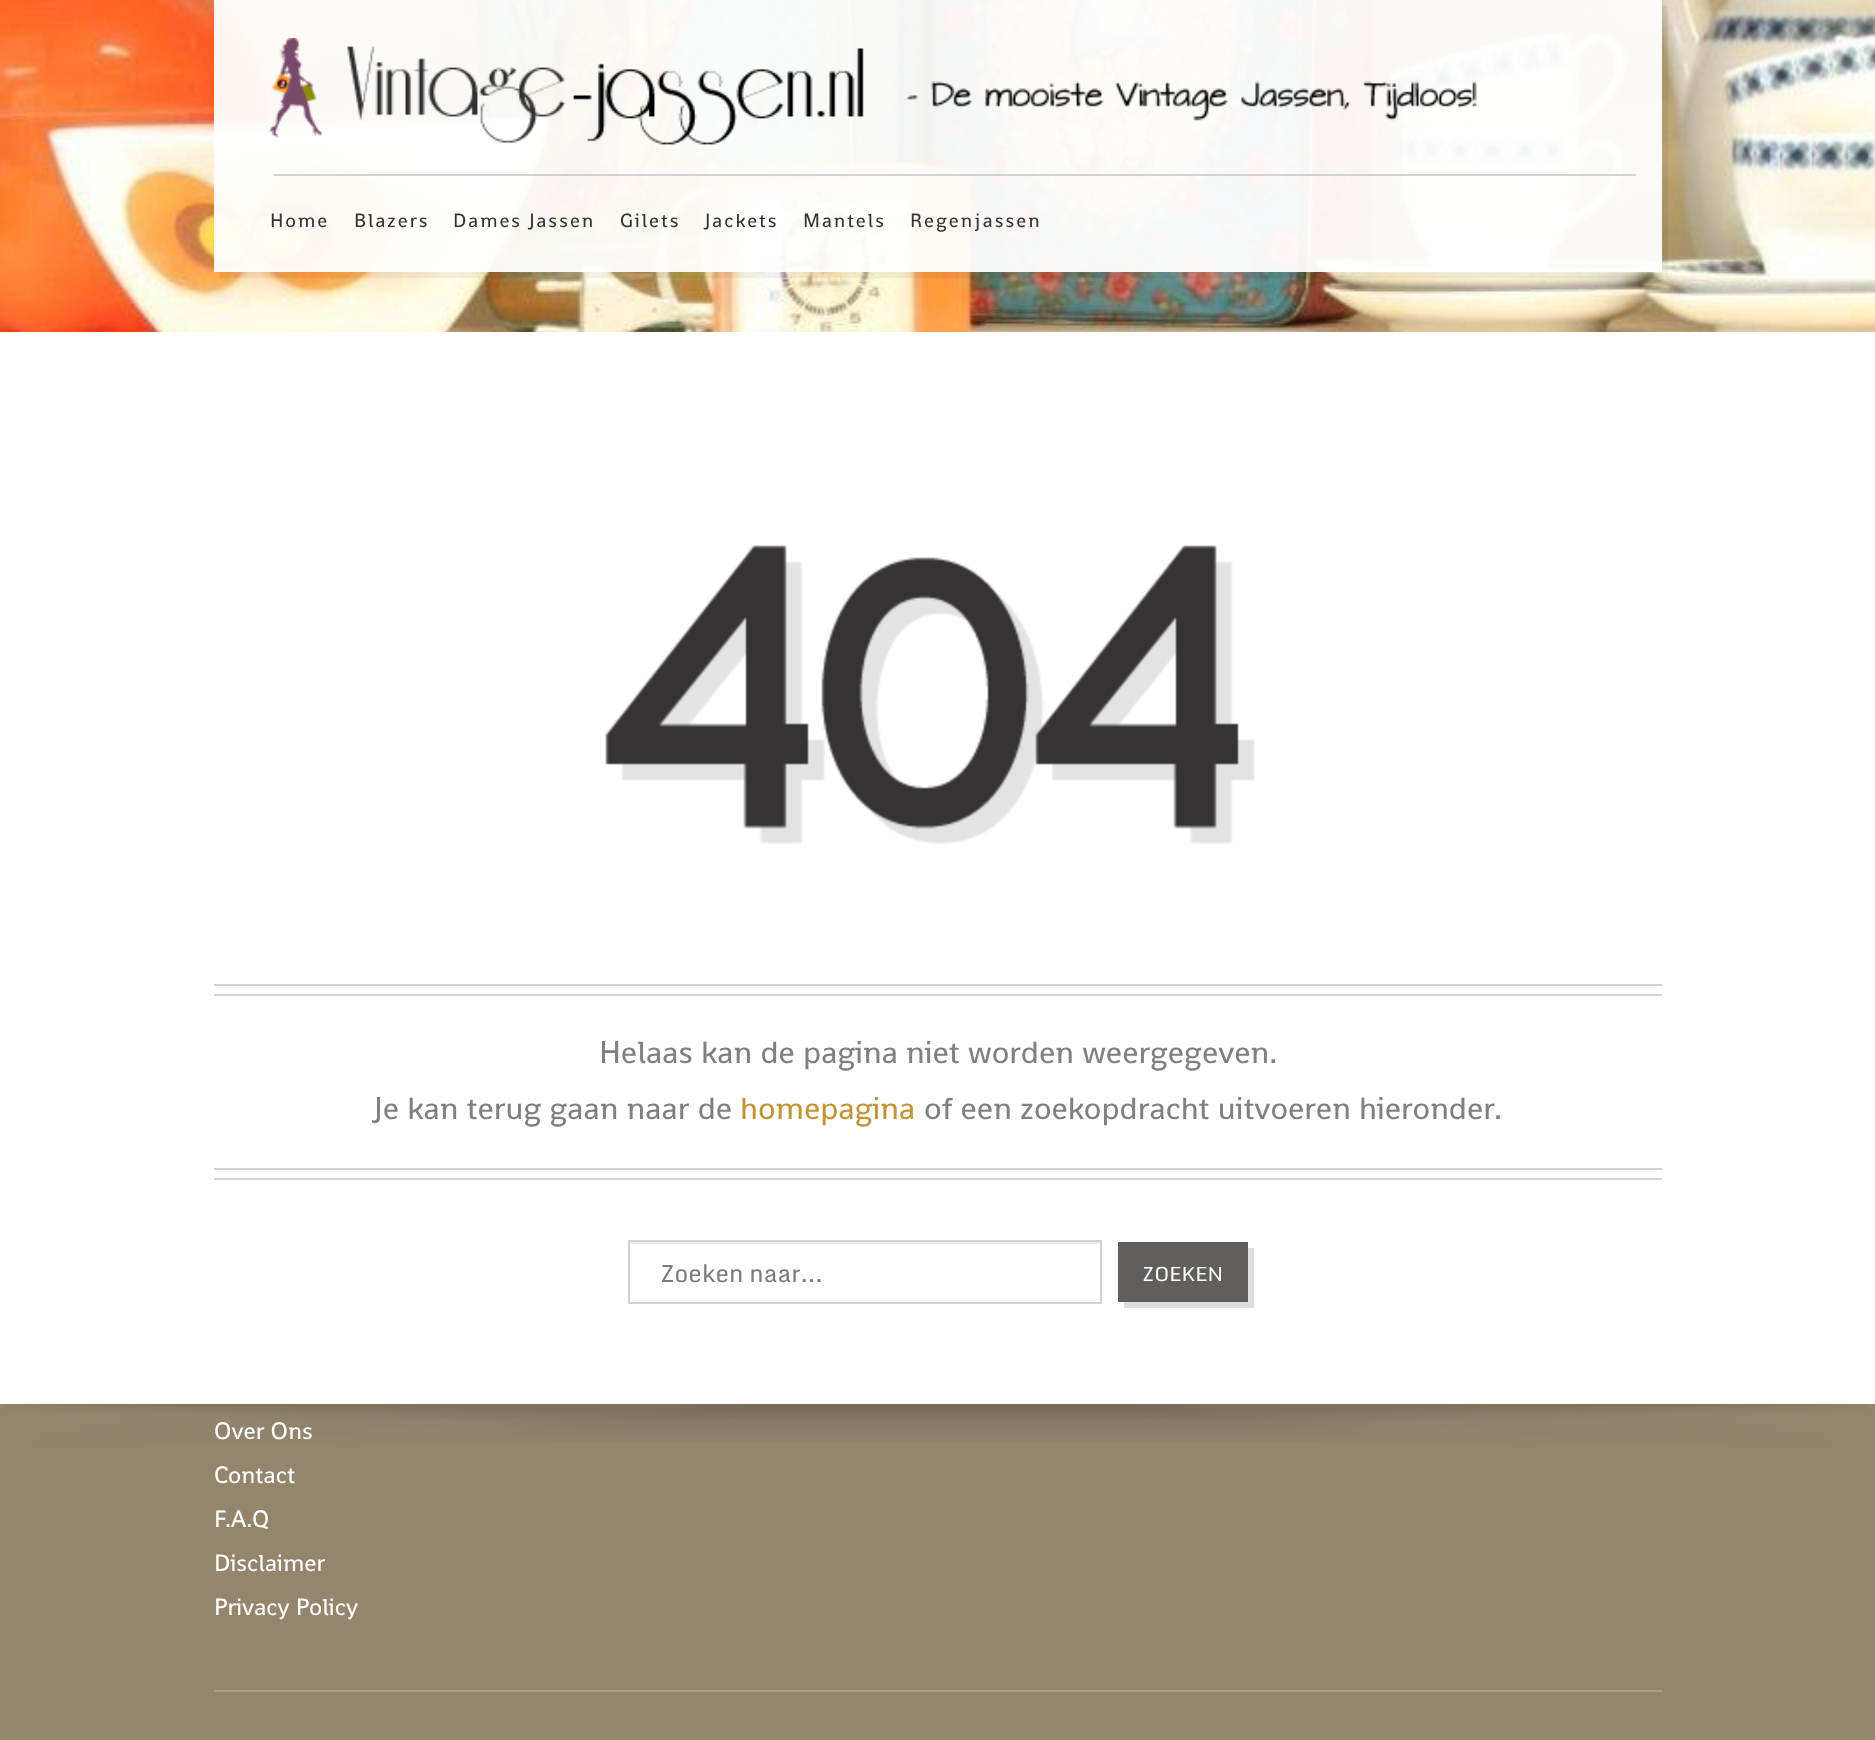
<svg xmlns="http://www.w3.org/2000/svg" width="1875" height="1740">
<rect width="100%" height="100%" fill="#fff"/>
<image x="0" y="0" width="1875" height="332" href="media/1.png"/>
<rect x="214" width="1448" height="272" fill="#fffffff0"/>
<path d="M220 272v6h1448v-272h-6v266z" fill="#0000000d"/>
<image x="268" y="38" width="1209" height="107" href="media/2.png"/>
<rect x="274" y="174" width="1362" height="2" fill="#d3d2d2"/>
<text x="270" y="227" style="font-family:Shanti;font-size:19.5px;letter-spacing:2px;fill:#353333">Home</text>
<text x="354" y="227" style="font-family:Shanti;font-size:19.5px;letter-spacing:2px;fill:#353333">Blazers</text>
<text x="453" y="227" style="font-family:Shanti;font-size:19.5px;letter-spacing:2px;fill:#353333">Dames Jassen</text>
<text x="620" y="227" style="font-family:Shanti;font-size:19.5px;letter-spacing:2px;fill:#353333">Gilets</text>
<text x="705" y="227" style="font-family:Shanti;font-size:19.5px;letter-spacing:2px;fill:#353333">Jackets</text>
<text x="803" y="227" style="font-family:Shanti;font-size:19.5px;letter-spacing:2px;fill:#353333">Mantels</text>
<text x="910" y="227" style="font-family:Shanti;font-size:19.5px;letter-spacing:2px;fill:#353333">Regenjassen</text>
<rect x="214" y="984" width="1448" height="2" fill="#d3d2d2"/>
<image x="605" y="545" width="650" height="299" href="media/3.png"/>
<rect x="214" y="994" width="1448" height="2" fill="#d3d2d2"/>
<rect x="214" y="1168" width="1448" height="2" fill="#d3d2d2"/>
<text x="599" y="1063" style="font-family:Shanti;font-size:32px;fill:#808080">Helaas kan de pagina niet worden weergegeven.</text>
<text x="374" y="1119" style="font-family:Shanti;font-size:32px;fill:#808080">Je kan terug gaan naar de</text>
<text x="740" y="1119" style="font-family:Shanti;font-size:32px;fill:#c19537">homepagina</text>
<text x="924" y="1119" style="font-family:Shanti;font-size:32px;fill:#808080">of een zoekopdracht uitvoeren hieronder.</text>
<rect x="214" y="1178" width="1448" height="2" fill="#d3d2d2"/>
<rect x="630" y="1242" width="470" height="2" fill="#ececec"/>
<rect x="629" y="1241" width="472" height="62" fill="none" stroke="#d3d2d2" stroke-width="2"/>
<text x="660" y="1282" style="font-family:Monda;font-size:24px;fill:#7b7979">Zoeken naar...</text>
<path d="M1124 1302v6h130v-60h-6v54z" fill="#dedede"/>
<rect x="1118" y="1242" width="130" height="60" fill="#605f5e"/>
<text x="1142" y="1281" style="font-family:Monda;font-size:20px;fill:#fff">ZOEKEN</text>
<rect y="1404" width="1875" height="336" fill="#93866d"/>
<image x="3" y="1404" width="1864" height="39" href="media/4.png"/>
<text x="214" y="1439" style="font-family:Shanti;font-size:24px;fill:#fff">Over Ons</text>
<text x="214" y="1483" style="font-family:Shanti;font-size:24px;fill:#fff">Contact</text>
<text x="214" y="1527" style="font-family:Shanti;font-size:24px;fill:#fff">F.A.Q</text>
<text x="214" y="1571" style="font-family:Shanti;font-size:24px;fill:#fff">Disclaimer</text>
<text x="214" y="1615" style="font-family:Shanti;font-size:24px;fill:#fff">Privacy Policy</text>
<rect x="214" y="1690" width="1448" height="2" fill="#aa9d82"/>
</svg>
